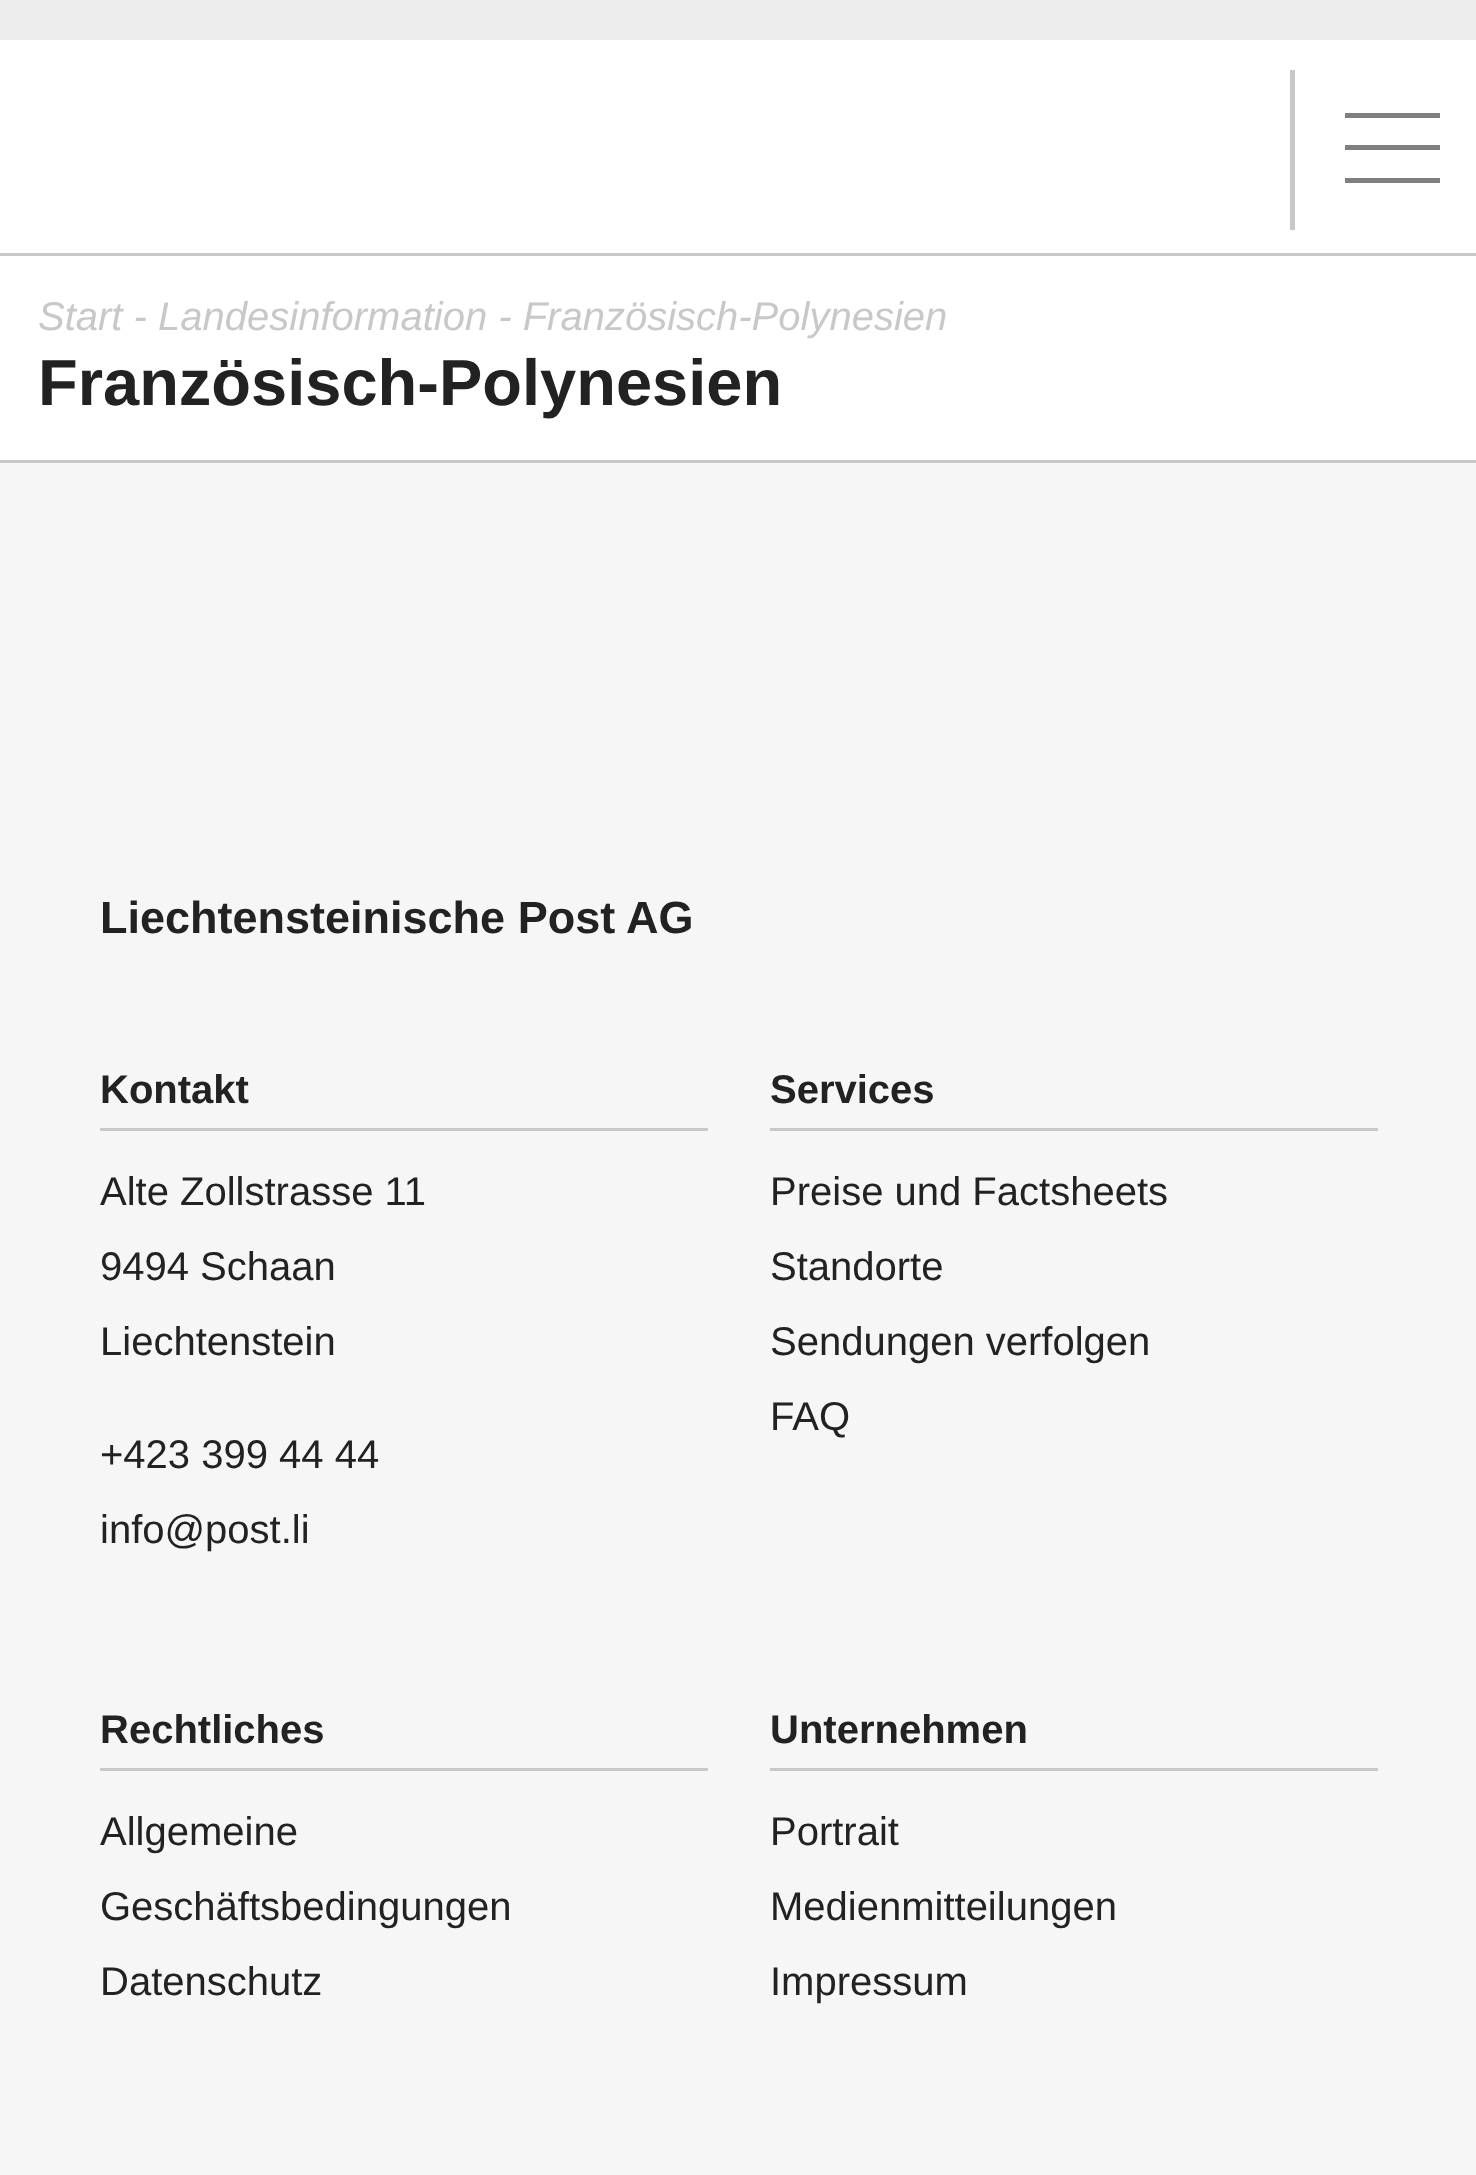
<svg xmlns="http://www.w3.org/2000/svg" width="1476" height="2175">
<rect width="100%" height="100%" fill="#fff"/>
<rect width="1476" height="40" fill="#ededed"/>
<rect y="253" width="1476" height="3" fill="#c8c8c8"/>
<rect x="1290" y="70" width="5" height="160" fill="#c8c8c8"/>
<rect x="1345" y="113" width="95" height="5" fill="#808080"/>
<rect x="1345" y="145" width="95" height="5" fill="#808080"/>
<rect x="1345" y="178" width="95" height="5" fill="#808080"/>
<text x="38" y="330" style="font-family:Liberation Sans;font-size:40px;font-style:italic;fill:#c8c8c8">Start - Landesinformation - Französisch-Polynesien</text>
<text x="38" y="405" style="font-family:Liberation Sans;font-size:65px;font-weight:bold;fill:#222">Französisch-Polynesien</text>
<rect y="463" width="1476" height="1712" fill="#f6f6f6"/>
<rect y="460" width="1476" height="3" fill="#c8c8c8"/>
<text x="100" y="933" style="font-family:Liberation Sans;font-size:45px;font-weight:bold;fill:#222">Liechtensteinische Post AG</text>
<rect x="100" y="1128" width="608" height="3" fill="#c8c8c8"/>
<text x="100" y="1103" style="font-family:Liberation Sans;font-size:40px;font-weight:bold;fill:#222">Kontakt</text>
<text x="100" y="1205" style="font-family:Liberation Sans;font-size:40px;fill:#222">Alte Zollstrasse 11</text>
<text x="100" y="1280" style="font-family:Liberation Sans;font-size:40px;fill:#222">9494 Schaan</text>
<text x="100" y="1355" style="font-family:Liberation Sans;font-size:40px;fill:#222">Liechtenstein</text>
<text x="100" y="1468" style="font-family:Liberation Sans;font-size:40px;fill:#222">+423 399 44 44</text>
<text x="100" y="1543" style="font-family:Liberation Sans;font-size:40px;fill:#222">info@post.li</text>
<rect x="770" y="1128" width="608" height="3" fill="#c8c8c8"/>
<text x="770" y="1103" style="font-family:Liberation Sans;font-size:40px;font-weight:bold;fill:#222">Services</text>
<text x="770" y="1205" style="font-family:Liberation Sans;font-size:40px;fill:#222">Preise und Factsheets</text>
<text x="770" y="1280" style="font-family:Liberation Sans;font-size:40px;fill:#222">Standorte</text>
<text x="770" y="1355" style="font-family:Liberation Sans;font-size:40px;fill:#222">Sendungen verfolgen</text>
<text x="770" y="1430" style="font-family:Liberation Sans;font-size:40px;fill:#222">FAQ</text>
<rect x="100" y="1768" width="608" height="3" fill="#c8c8c8"/>
<text x="100" y="1743" style="font-family:Liberation Sans;font-size:40px;font-weight:bold;fill:#222">Rechtliches</text>
<text x="100" y="1845" style="font-family:Liberation Sans;font-size:40px;fill:#222">Allgemeine</text>
<text x="100" y="1920" style="font-family:Liberation Sans;font-size:40px;fill:#222">Geschäftsbedingungen</text>
<text x="100" y="1995" style="font-family:Liberation Sans;font-size:40px;fill:#222">Datenschutz</text>
<rect x="770" y="1768" width="608" height="3" fill="#c8c8c8"/>
<text x="770" y="1743" style="font-family:Liberation Sans;font-size:40px;font-weight:bold;fill:#222">Unternehmen</text>
<text x="770" y="1845" style="font-family:Liberation Sans;font-size:40px;fill:#222">Portrait</text>
<text x="770" y="1920" style="font-family:Liberation Sans;font-size:40px;fill:#222">Medienmitteilungen</text>
<text x="770" y="1995" style="font-family:Liberation Sans;font-size:40px;fill:#222">Impressum</text>
</svg>
